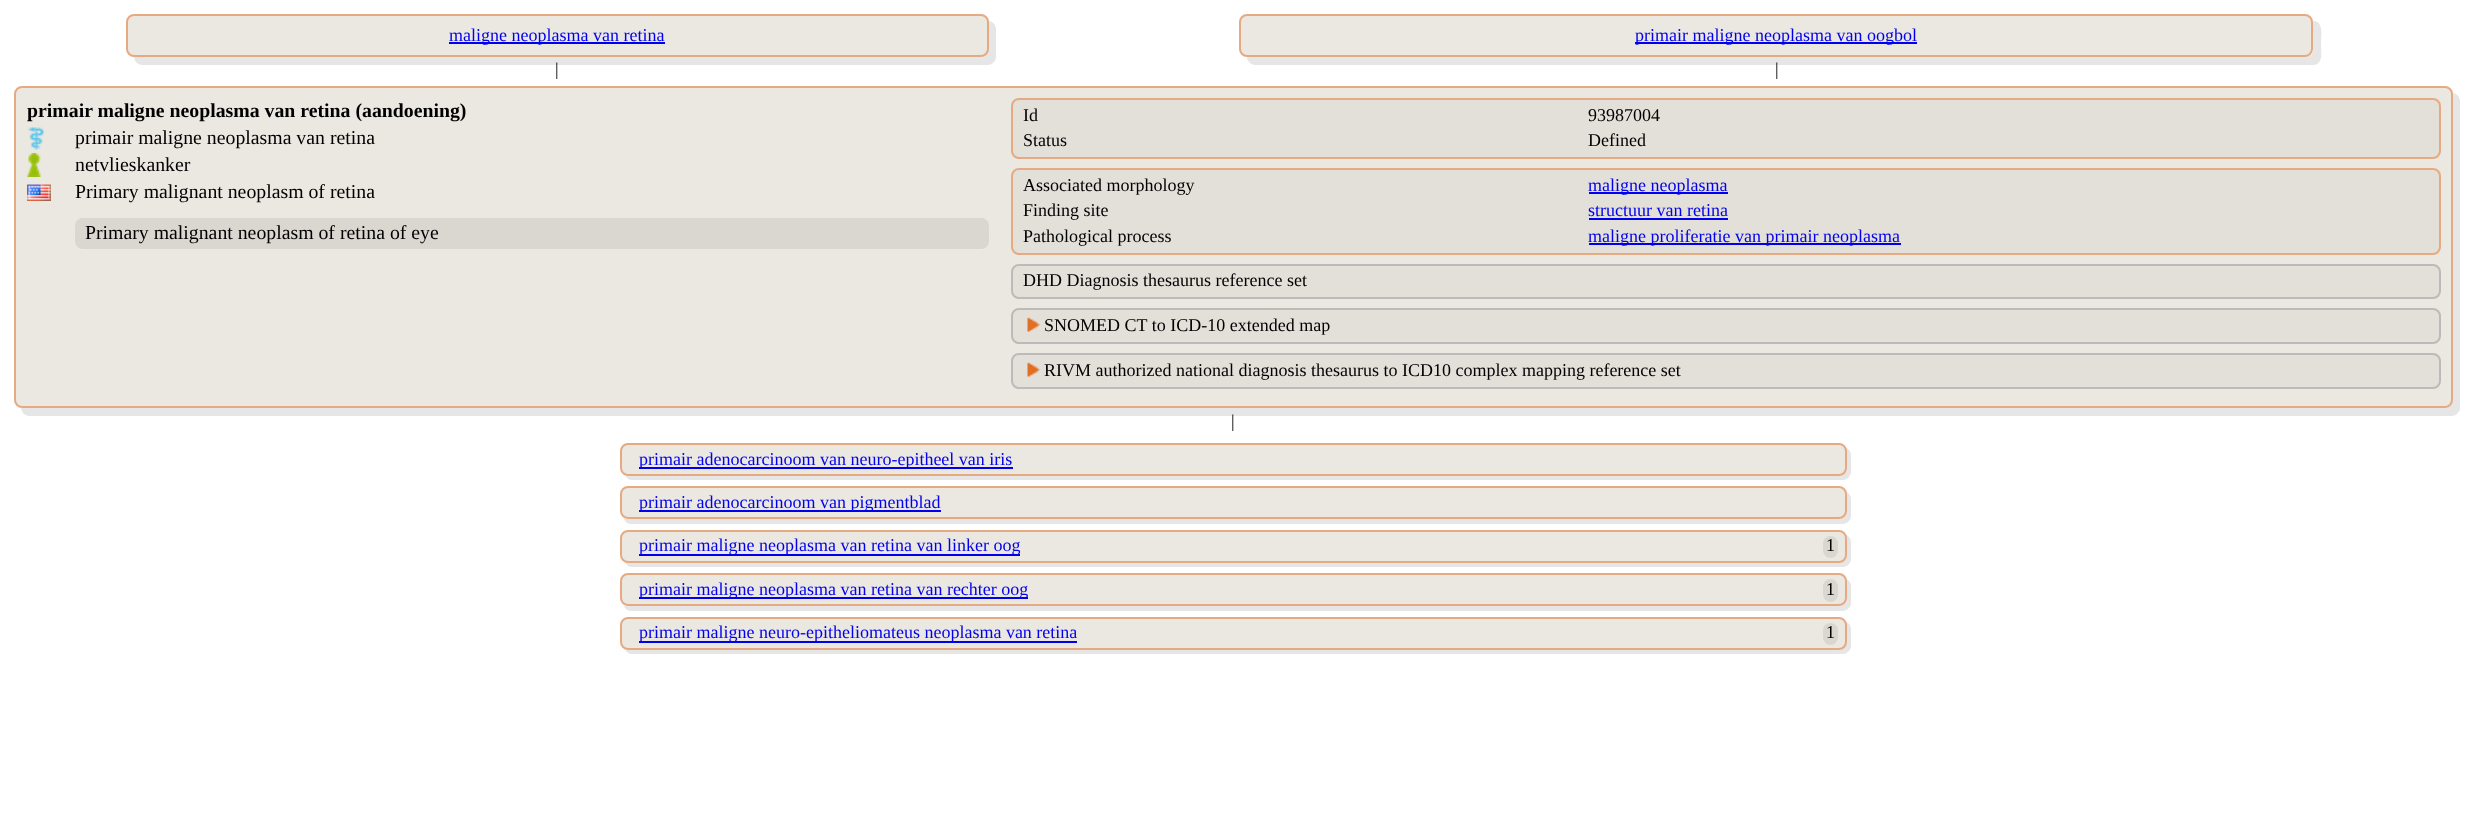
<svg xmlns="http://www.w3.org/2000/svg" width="2465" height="838">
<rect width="100%" height="100%" fill="#fff"/>
<path d="M134 57c0 4 4 8 8 8h846c4 0 8-4 8-8v-28c0-4-3-8-8-8v29c0 4-3 7-7 7z" fill="#e6e6e6"/>
<rect x="127" y="15" width="861" height="41" rx="7" fill="#ebe7e1" stroke="#e6aa83" stroke-width="2"/>
<rect x="449" y="42" width="216" height="2" fill="#00e"/>
<text x="449" y="41" style="font-family:Liberation Serif;font-size:18px;fill:#00e">maligne neoplasma van retina</text>
<path d="M1247 57c0 4 4 8 8 8h1058c11 0 8-15 8-22c0-7 3-22-8-22v29c0 4-3 7-7 7z" fill="#e6e6e6"/>
<rect x="1240" y="15" width="1072" height="41" rx="7" fill="#ebe7e1" stroke="#e6aa83" stroke-width="2"/>
<rect x="1635" y="42" width="282" height="2" fill="#00e"/>
<text x="1635" y="41" style="font-family:Liberation Serif;font-size:18px;fill:#00e">primair maligne neoplasma van oogbol</text>
<text x="555" y="75" style="font-family:Liberation Serif;font-size:18px;fill:#000">|</text>
<text x="1775" y="75" style="font-family:Liberation Serif;font-size:18px;fill:#000">|</text>
<path d="M21 408c0 4 4 8 8 8h2423c4 0 8-4 8-8v-307c0-4-3-8-8-8v307c0 5-3 8-7 8z" fill="#e6e6e6"/>
<rect x="15" y="87" width="2437" height="320" rx="7" fill="#ebe7e1" stroke="#e6aa83" stroke-width="2"/>
<text x="27" y="117" style="font-family:Liberation Serif;font-size:19.8px;font-weight:bold;fill:#000">primair maligne neoplasma van retina (aandoening)</text>
<image x="28" y="127" width="16" height="23" href="media/1.png"/>
<text x="75" y="144" style="font-family:Liberation Serif;font-size:19.8px;fill:#000">primair maligne neoplasma van retina</text>
<image x="27" y="153" width="14" height="24" href="media/2.png"/>
<text x="75" y="171" style="font-family:Liberation Serif;font-size:19.8px;fill:#000">netvlieskanker</text>
<image x="27" y="184" width="24" height="17" href="media/3.png"/>
<text x="75" y="198" style="font-family:Liberation Serif;font-size:19.8px;fill:#000">Primary malignant neoplasm of retina</text>
<rect x="75" y="218" width="914" height="31" rx="8" fill="#dad6d0"/>
<text x="85" y="239" style="font-family:Liberation Serif;font-size:19.8px;fill:#000">Primary malignant neoplasm of retina of eye</text>
<rect x="1012" y="99" width="1428" height="59" rx="7" fill="#e3dfd9" stroke="#e6aa83" stroke-width="2"/>
<text x="1023" y="121" style="font-family:Liberation Serif;font-size:18px;fill:#000">Id</text>
<text x="1588" y="121" style="font-family:Liberation Serif;font-size:18px;fill:#000">93987004</text>
<text x="1023" y="146" style="font-family:Liberation Serif;font-size:18px;fill:#000">Status</text>
<text x="1588" y="146" style="font-family:Liberation Serif;font-size:18px;fill:#000">Defined</text>
<rect x="1012" y="169" width="1428" height="85" rx="7" fill="#e3dfd9" stroke="#e6aa83" stroke-width="2"/>
<text x="1023" y="191" style="font-family:Liberation Serif;font-size:18px;fill:#000">Associated morphology</text>
<rect x="1589" y="192" width="139" height="2" fill="#00e"/>
<text x="1588" y="191" style="font-family:Liberation Serif;font-size:18px;fill:#00e">maligne neoplasma</text>
<text x="1023" y="216" style="font-family:Liberation Serif;font-size:18px;fill:#000">Finding site</text>
<text x="1588" y="216" style="font-family:Liberation Serif;font-size:18px;fill:#00e">structuur van retina</text>
<rect x="1589" y="218" width="139" height="2" fill="#00e"/>
<text x="1023" y="242" style="font-family:Liberation Serif;font-size:18px;fill:#000">Pathological process</text>
<rect x="1589" y="243" width="312" height="2" fill="#00e"/>
<text x="1588" y="242" style="font-family:Liberation Serif;font-size:18px;fill:#00e">maligne proliferatie van primair neoplasma</text>
<rect x="1012" y="265" width="1428" height="33" rx="7" fill="#e3dfd9" stroke="#bbb" stroke-width="2"/>
<text x="1023" y="286" style="font-family:Liberation Serif;font-size:18px;fill:#000">DHD Diagnosis thesaurus reference set</text>
<rect x="1012" y="309" width="1428" height="34" rx="7" fill="#e3dfd9" stroke="#bbb" stroke-width="2"/>
<image x="1027" y="317" width="13" height="15" href="media/4.png"/>
<text x="1044" y="331" style="font-family:Liberation Serif;font-size:18px;fill:#000">SNOMED CT to ICD-10 extended map</text>
<rect x="1012" y="354" width="1428" height="34" rx="7" fill="#e3dfd9" stroke="#bbb" stroke-width="2"/>
<image x="1027" y="362" width="13" height="15" href="media/4.png"/>
<text x="1044" y="376" style="font-family:Liberation Serif;font-size:18px;fill:#000">RIVM authorized national diagnosis thesaurus to ICD10 complex mapping reference set</text>
<text x="1231" y="427" style="font-family:Liberation Serif;font-size:18px;fill:#000">|</text>
<path d="M625 475c1 3 4 5 7 5h1211c4 0 8-4 8-8v-17c0-3-2-6-5-7v11c0 6 2 16-7 17h-1212z" fill="#e6e6e6"/>
<rect x="621" y="444" width="1225" height="31" rx="7" fill="#ebe7e1" stroke="#e6aa83" stroke-width="2"/>
<rect x="639" y="467" width="374" height="2" fill="#00e"/>
<text x="639" y="465" style="font-family:Liberation Serif;font-size:18px;fill:#00e">primair adenocarcinoom van neuro-epitheel van iris</text>
<path d="M624 519c1 3 4 5 8 5h1211c4 0 8-4 8-8v-17c0-3-2-6-5-7v21c0 2-1 4-3 5l-4 1h-1212z" fill="#e6e6e6"/>
<rect x="621" y="487" width="1225" height="31" rx="7" fill="#ebe7e1" stroke="#e6aa83" stroke-width="2"/>
<rect x="639" y="510" width="302" height="2" fill="#00e"/>
<text x="639" y="508" style="font-family:Liberation Serif;font-size:18px;fill:#00e">primair adenocarcinoom van pigmentblad</text>
<path d="M625 562c1 3 4 5 7 5h1211c4 0 8-4 8-8v-17c0-3-2-6-5-7v11c0 6 2 16-7 16h-1212z" fill="#e6e6e6"/>
<rect x="621" y="531" width="1225" height="31" rx="7" fill="#ebe7e1" stroke="#e6aa83" stroke-width="2"/>
<rect x="639" y="554" width="381" height="2" fill="#00e"/>
<text x="639" y="551" style="font-family:Liberation Serif;font-size:18px;fill:#00e">primair maligne neoplasma van retina van linker oog</text>
<rect x="1823" y="536" width="15" height="22" rx="7.5" fill="#dad6d0"/>
<text x="1826" y="551" style="font-family:Liberation Serif;font-size:18px;fill:#000">1</text>
<path d="M624 606c1 3 4 5 8 5h1211c4 0 8-4 8-8v-17c0-3-2-6-5-7v21c0 2-1 4-3 5l-4 1h-1212z" fill="#e6e6e6"/>
<rect x="621" y="574" width="1225" height="31" rx="7" fill="#ebe7e1" stroke="#e6aa83" stroke-width="2"/>
<rect x="639" y="597" width="389" height="2" fill="#00e"/>
<text x="639" y="595" style="font-family:Liberation Serif;font-size:18px;fill:#00e">primair maligne neoplasma van retina van rechter oog</text>
<rect x="1823" y="579" width="15" height="23" rx="7.5" fill="#dad6d0"/>
<text x="1826" y="595" style="font-family:Liberation Serif;font-size:18px;fill:#000">1</text>
<path d="M625 649c1 3 4 5 7 5h1211c4 0 8-4 8-8v-17c0-3-2-6-5-7v11c0 6 2 16-7 17h-1212z" fill="#e6e6e6"/>
<rect x="621" y="618" width="1225" height="31" rx="7" fill="#ebe7e1" stroke="#e6aa83" stroke-width="2"/>
<rect x="639" y="641" width="438" height="2" fill="#00e"/>
<text x="639" y="638" style="font-family:Liberation Serif;font-size:18px;fill:#00e">primair maligne neuro-epitheliomateus neoplasma van retina</text>
<rect x="1823" y="623" width="15" height="22" rx="7.5" fill="#dad6d0"/>
<text x="1826" y="638" style="font-family:Liberation Serif;font-size:18px;fill:#000">1</text>
</svg>
